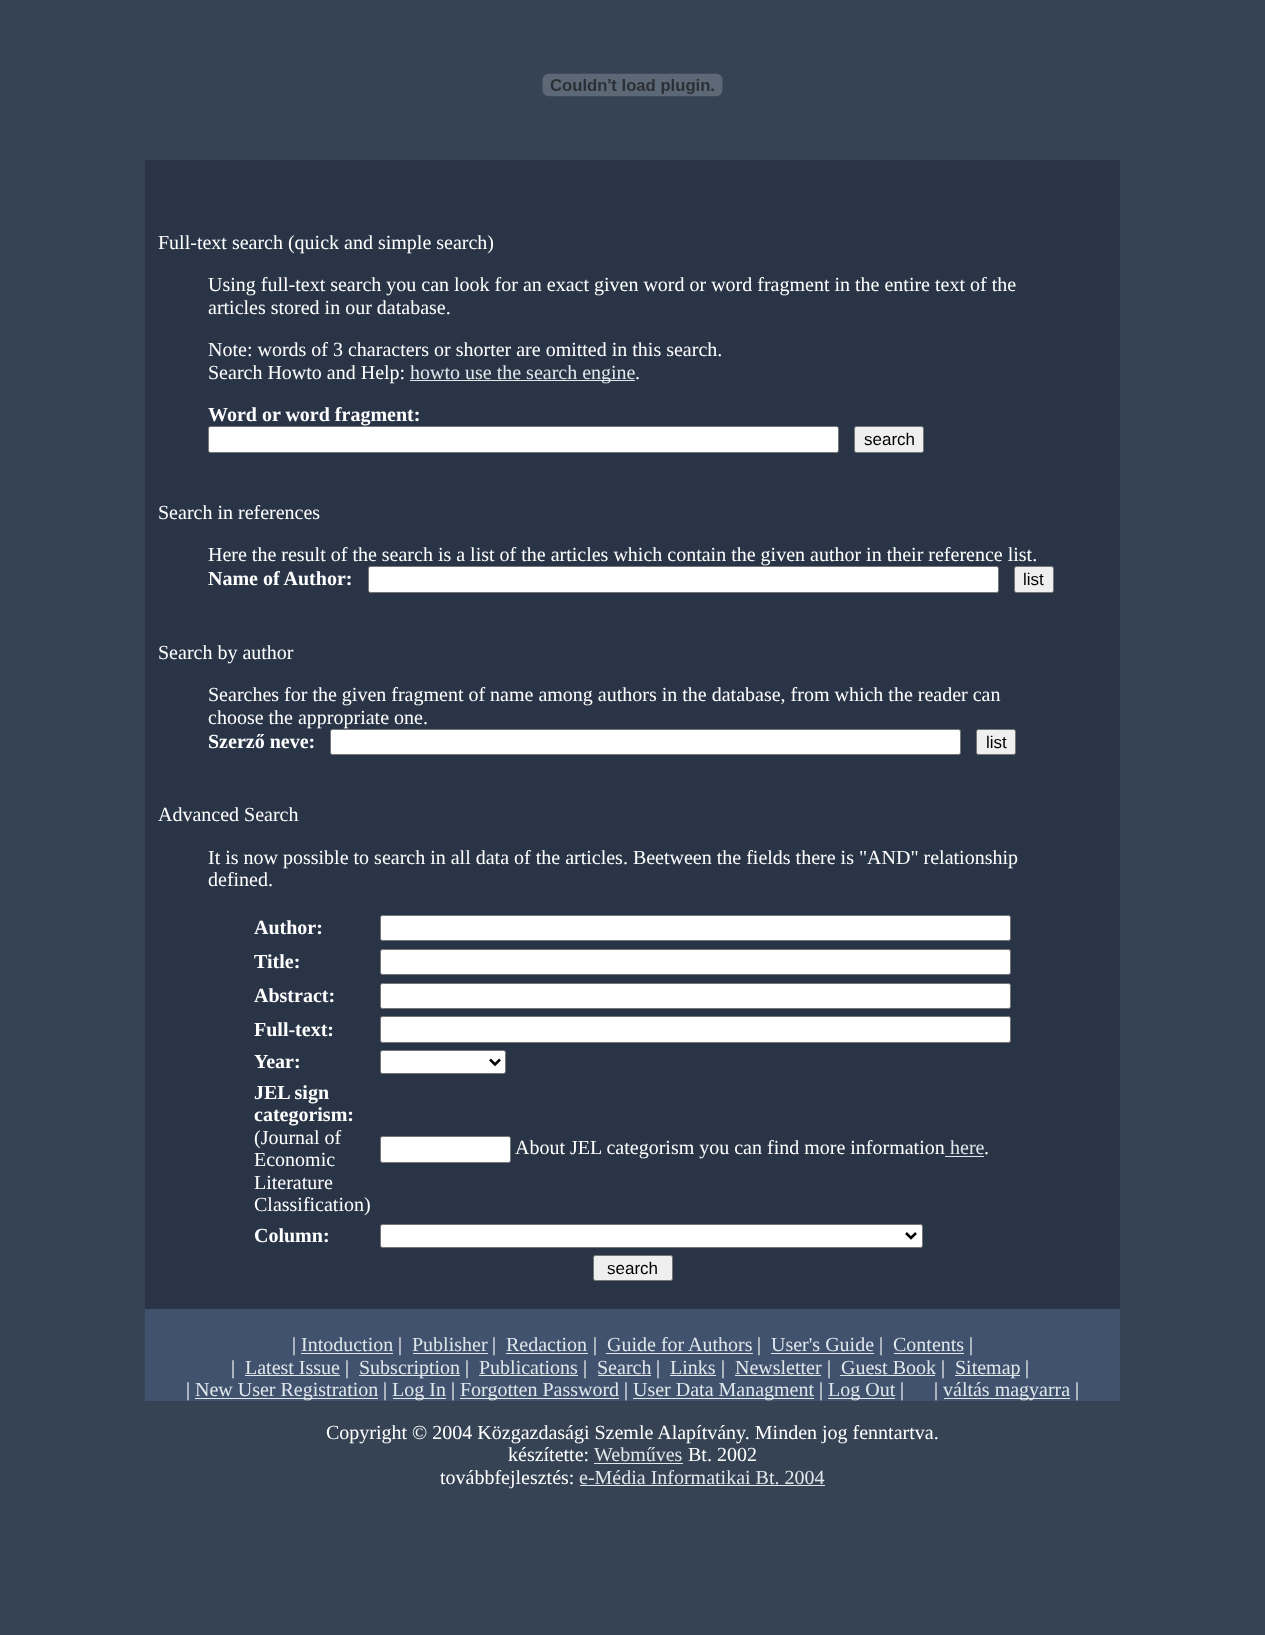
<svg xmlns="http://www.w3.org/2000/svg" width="1265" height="1635">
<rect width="100%" height="100%" fill="#354354"/>
<image x="542" y="73" width="181" height="24" href="media/1.png"/>
<rect x="145" y="160" width="975" height="1149" fill="#293547"/>
<text x="158" y="249" style="font-family:Liberation Serif;font-size:20px;fill:#fff">Full-text search (quick and simple search)</text>
<text x="208" y="291" style="font-family:Liberation Serif;font-size:20px;fill:#fff">Using full-text search you can look for an exact given word or word fragment in the entire text of the</text>
<text x="208" y="314" style="font-family:Liberation Serif;font-size:20px;fill:#fff">articles stored in our database.</text>
<text x="208" y="356" style="font-family:Liberation Serif;font-size:20px;fill:#fff">Note: words of 3 characters or shorter are omitted in this search.</text>
<text x="208" y="379" style="font-family:Liberation Serif;font-size:20px;fill:#fff">Search Howto and Help:</text>
<rect x="410" y="380" width="225" height="1" fill="#e0e7eb"/>
<text x="410" y="379" style="font-family:Liberation Serif;font-size:20px;fill:#e0e7eb">howto use the search engine</text>
<text x="635" y="379" style="font-family:Liberation Serif;font-size:20px;fill:#fff">.</text>
<text x="208" y="421" style="font-family:Liberation Serif;font-size:20px;font-weight:bold;fill:#fff">Word or word fragment:</text>
<rect x="208.5" y="426.5" width="630" height="26" rx="2" fill="#fff" stroke="#767676"/>
<rect x="854.5" y="426.5" width="69" height="26" rx="2" fill="#efefef" stroke="#767676"/>
<text x="864" y="445" style="font-family:Liberation Sans;font-size:17px;fill:#000">search</text>
<text x="158" y="519" style="font-family:Liberation Serif;font-size:20px;fill:#fff">Search in references</text>
<text x="208" y="561" style="font-family:Liberation Serif;font-size:20px;fill:#fff">Here the result of the search is a list of the articles which contain the given author in their reference list.</text>
<text x="208" y="585" style="font-family:Liberation Serif;font-size:20px;font-weight:bold;fill:#fff">Name of Author:</text>
<rect x="368.5" y="566.5" width="630" height="26" rx="2" fill="#fff" stroke="#767676"/>
<rect x="1014.5" y="566.5" width="39" height="26" rx="2" fill="#efefef" stroke="#767676"/>
<text x="1023" y="585" style="font-family:Liberation Sans;font-size:17px;fill:#000">list</text>
<text x="158" y="659" style="font-family:Liberation Serif;font-size:20px;fill:#fff">Search by author</text>
<text x="208" y="701" style="font-family:Liberation Serif;font-size:20px;fill:#fff">Searches for the given fragment of name among authors in the database, from which the reader can</text>
<text x="208" y="724" style="font-family:Liberation Serif;font-size:20px;fill:#fff">choose the appropriate one.</text>
<text x="208" y="748" style="font-family:Liberation Serif;font-size:20px;font-weight:bold;fill:#fff">Szerző neve:</text>
<rect x="330.5" y="729.5" width="630" height="25" rx="2" fill="#fff" stroke="#767676"/>
<rect x="976.5" y="729.5" width="39" height="25" rx="2" fill="#efefef" stroke="#767676"/>
<text x="986" y="748" style="font-family:Liberation Sans;font-size:17px;fill:#000">list</text>
<text x="158" y="821" style="font-family:Liberation Serif;font-size:20px;fill:#fff">Advanced Search</text>
<text x="208" y="864" style="font-family:Liberation Serif;font-size:20px;fill:#fff">It is now possible to search in all data of the articles. Beetween the fields there is "AND" relationship</text>
<text x="208" y="886" style="font-family:Liberation Serif;font-size:20px;fill:#fff">defined.</text>
<text x="254" y="934" style="font-family:Liberation Serif;font-size:20px;font-weight:bold;fill:#fff">Author:</text>
<rect x="380.5" y="915.5" width="630" height="25" rx="2" fill="#fff" stroke="#767676"/>
<text x="254" y="968" style="font-family:Liberation Serif;font-size:20px;font-weight:bold;fill:#fff">Title:</text>
<rect x="380.5" y="949.5" width="630" height="25" rx="2" fill="#fff" stroke="#767676"/>
<text x="254" y="1002" style="font-family:Liberation Serif;font-size:20px;font-weight:bold;fill:#fff">Abstract:</text>
<rect x="380.5" y="983.5" width="630" height="25" rx="2" fill="#fff" stroke="#767676"/>
<text x="254" y="1036" style="font-family:Liberation Serif;font-size:20px;font-weight:bold;fill:#fff">Full-text:</text>
<rect x="380.5" y="1016.5" width="630" height="26" rx="2" fill="#fff" stroke="#767676"/>
<text x="254" y="1068" style="font-family:Liberation Serif;font-size:20px;font-weight:bold;fill:#fff">Year:</text>
<rect x="380.5" y="1050.5" width="125" height="23" rx="2" fill="#fff" stroke="#767676"/>
<path d="M490 1059.5l5 5l5-5" fill="none" stroke="#000" stroke-width="2.5"/>
<text x="254" y="1099" style="font-family:Liberation Serif;font-size:20px;font-weight:bold;fill:#fff">JEL sign</text>
<text x="254" y="1121" style="font-family:Liberation Serif;font-size:20px;font-weight:bold;fill:#fff">categorism:</text>
<text x="254" y="1144" style="font-family:Liberation Serif;font-size:20px;fill:#fff">(Journal of</text>
<text x="254" y="1166" style="font-family:Liberation Serif;font-size:20px;fill:#fff">Economic</text>
<text x="254" y="1189" style="font-family:Liberation Serif;font-size:20px;fill:#fff">Literature</text>
<text x="254" y="1211" style="font-family:Liberation Serif;font-size:20px;fill:#fff">Classification)</text>
<rect x="380.5" y="1136.5" width="130" height="26" rx="2" fill="#fff" stroke="#767676"/>
<text x="515" y="1154" style="font-family:Liberation Serif;font-size:20px;fill:#fff">About JEL categorism you can find more information</text>
<text x="950" y="1154" style="font-family:Liberation Serif;font-size:20px;fill:#e0e7eb">here</text>
<rect x="945" y="1156" width="39" height="1" fill="#e0e7eb"/>
<text x="984" y="1154" style="font-family:Liberation Serif;font-size:20px;fill:#fff">.</text>
<text x="254" y="1242" style="font-family:Liberation Serif;font-size:20px;font-weight:bold;fill:#fff">Column:</text>
<rect x="380.5" y="1224.5" width="542" height="23" rx="2" fill="#fff" stroke="#767676"/>
<path d="M906 1233l5 5l5-5" fill="none" stroke="#000" stroke-width="2.5"/>
<rect x="593.5" y="1255.5" width="79" height="25" rx="2" fill="#efefef" stroke="#767676"/>
<text x="607" y="1274" style="font-family:Liberation Sans;font-size:17px;fill:#000">search</text>
<rect x="145" y="1309" width="975" height="92" fill="#41526e"/>
<text x="292" y="1351" style="font-family:Liberation Serif;font-size:20px;fill:#fff">|</text>
<text x="301" y="1351" style="font-family:Liberation Serif;font-size:20px;fill:#e0e7eb">Intoduction</text>
<rect x="301" y="1353" width="92" height="1" fill="#e0e7eb"/>
<text x="398" y="1351" style="font-family:Liberation Serif;font-size:20px;fill:#fff">|</text>
<text x="412" y="1351" style="font-family:Liberation Serif;font-size:20px;fill:#e0e7eb">Publisher</text>
<rect x="413" y="1353" width="75" height="1" fill="#e0e7eb"/>
<text x="492" y="1351" style="font-family:Liberation Serif;font-size:20px;fill:#fff">|</text>
<text x="506" y="1351" style="font-family:Liberation Serif;font-size:20px;fill:#e0e7eb">Redaction</text>
<rect x="506" y="1353" width="82" height="1" fill="#e0e7eb"/>
<text x="593" y="1351" style="font-family:Liberation Serif;font-size:20px;fill:#fff">|</text>
<text x="607" y="1351" style="font-family:Liberation Serif;font-size:20px;fill:#e0e7eb">Guide for Authors</text>
<rect x="606" y="1353" width="147" height="1" fill="#e0e7eb"/>
<text x="757" y="1351" style="font-family:Liberation Serif;font-size:20px;fill:#fff">|</text>
<text x="771" y="1351" style="font-family:Liberation Serif;font-size:20px;fill:#e0e7eb">User's Guide</text>
<rect x="771" y="1353" width="103" height="1" fill="#e0e7eb"/>
<text x="879" y="1351" style="font-family:Liberation Serif;font-size:20px;fill:#fff">|</text>
<text x="893" y="1351" style="font-family:Liberation Serif;font-size:20px;fill:#e0e7eb">Contents</text>
<rect x="894" y="1353" width="70" height="1" fill="#e0e7eb"/>
<text x="969" y="1351" style="font-family:Liberation Serif;font-size:20px;fill:#fff">|</text>
<text x="231" y="1374" style="font-family:Liberation Serif;font-size:20px;fill:#fff">|</text>
<text x="245" y="1374" style="font-family:Liberation Serif;font-size:20px;fill:#e0e7eb">Latest Issue</text>
<rect x="245" y="1375" width="95" height="1" fill="#e0e7eb"/>
<text x="345" y="1374" style="font-family:Liberation Serif;font-size:20px;fill:#fff">|</text>
<rect x="359" y="1375" width="101" height="1" fill="#e0e7eb"/>
<text x="359" y="1374" style="font-family:Liberation Serif;font-size:20px;fill:#e0e7eb">Subscription</text>
<text x="465" y="1374" style="font-family:Liberation Serif;font-size:20px;fill:#fff">|</text>
<text x="479" y="1374" style="font-family:Liberation Serif;font-size:20px;fill:#e0e7eb">Publications</text>
<rect x="479" y="1375" width="99" height="1" fill="#e0e7eb"/>
<text x="583" y="1374" style="font-family:Liberation Serif;font-size:20px;fill:#fff">|</text>
<text x="597" y="1374" style="font-family:Liberation Serif;font-size:20px;fill:#e0e7eb">Search</text>
<rect x="598" y="1375" width="53" height="1" fill="#e0e7eb"/>
<text x="656" y="1374" style="font-family:Liberation Serif;font-size:20px;fill:#fff">|</text>
<text x="670" y="1374" style="font-family:Liberation Serif;font-size:20px;fill:#e0e7eb">Links</text>
<rect x="670" y="1375" width="46" height="1" fill="#e0e7eb"/>
<text x="721" y="1374" style="font-family:Liberation Serif;font-size:20px;fill:#fff">|</text>
<text x="735" y="1374" style="font-family:Liberation Serif;font-size:20px;fill:#e0e7eb">Newsletter</text>
<rect x="735" y="1375" width="86" height="1" fill="#e0e7eb"/>
<text x="827" y="1374" style="font-family:Liberation Serif;font-size:20px;fill:#fff">|</text>
<text x="841" y="1374" style="font-family:Liberation Serif;font-size:20px;fill:#e0e7eb">Guest Book</text>
<rect x="840" y="1375" width="95" height="1" fill="#e0e7eb"/>
<text x="941" y="1374" style="font-family:Liberation Serif;font-size:20px;fill:#fff">|</text>
<rect x="955" y="1375" width="65" height="1" fill="#e0e7eb"/>
<text x="955" y="1374" style="font-family:Liberation Serif;font-size:20px;fill:#e0e7eb">Sitemap</text>
<text x="1025" y="1374" style="font-family:Liberation Serif;font-size:20px;fill:#fff">|</text>
<text x="186" y="1396" style="font-family:Liberation Serif;font-size:20px;fill:#fff">|</text>
<rect x="195" y="1398" width="183" height="1" fill="#e0e7eb"/>
<text x="195" y="1396" style="font-family:Liberation Serif;font-size:20px;fill:#e0e7eb">New User Registration</text>
<text x="383" y="1396" style="font-family:Liberation Serif;font-size:20px;fill:#fff">|</text>
<rect x="393" y="1398" width="53" height="1" fill="#e0e7eb"/>
<text x="392" y="1396" style="font-family:Liberation Serif;font-size:20px;fill:#e0e7eb">Log In</text>
<text x="451" y="1396" style="font-family:Liberation Serif;font-size:20px;fill:#fff">|</text>
<rect x="460" y="1398" width="159" height="1" fill="#e0e7eb"/>
<text x="460" y="1396" style="font-family:Liberation Serif;font-size:20px;fill:#e0e7eb">Forgotten Password</text>
<text x="624" y="1396" style="font-family:Liberation Serif;font-size:20px;fill:#fff">|</text>
<rect x="633" y="1398" width="181" height="1" fill="#e0e7eb"/>
<text x="633" y="1396" style="font-family:Liberation Serif;font-size:20px;fill:#e0e7eb">User Data Managment</text>
<text x="819" y="1396" style="font-family:Liberation Serif;font-size:20px;fill:#fff">|</text>
<rect x="828" y="1398" width="67" height="1" fill="#e0e7eb"/>
<text x="828" y="1396" style="font-family:Liberation Serif;font-size:20px;fill:#e0e7eb">Log Out</text>
<text x="900" y="1396" style="font-family:Liberation Serif;font-size:20px;fill:#fff">|</text>
<text x="934" y="1396" style="font-family:Liberation Serif;font-size:20px;fill:#fff">|</text>
<rect x="944" y="1398" width="126" height="1" fill="#e0e7eb"/>
<text x="943" y="1396" style="font-family:Liberation Serif;font-size:20px;fill:#e0e7eb">váltás magyarra</text>
<text x="1075" y="1396" style="font-family:Liberation Serif;font-size:20px;fill:#fff">|</text>
<text x="326" y="1439" style="font-family:Liberation Serif;font-size:20px;fill:#fff">Copyright © 2004 Közgazdasági Szemle Alapítvány. Minden jog fenntartva.</text>
<text x="508" y="1461" style="font-family:Liberation Serif;font-size:20px;fill:#fff">készítette:</text>
<text x="594" y="1461" style="font-family:Liberation Serif;font-size:20px;fill:#e0e7eb">Webműves</text>
<rect x="594" y="1463" width="89" height="1" fill="#e0e7eb"/>
<text x="688" y="1461" style="font-family:Liberation Serif;font-size:20px;fill:#fff">Bt. 2002</text>
<text x="440" y="1484" style="font-family:Liberation Serif;font-size:20px;fill:#fff">továbbfejlesztés:</text>
<text x="579" y="1484" style="font-family:Liberation Serif;font-size:20px;fill:#e0e7eb">e-Média Informatikai Bt. 2004</text>
<rect x="580" y="1485" width="245" height="1" fill="#e0e7eb"/>
</svg>
